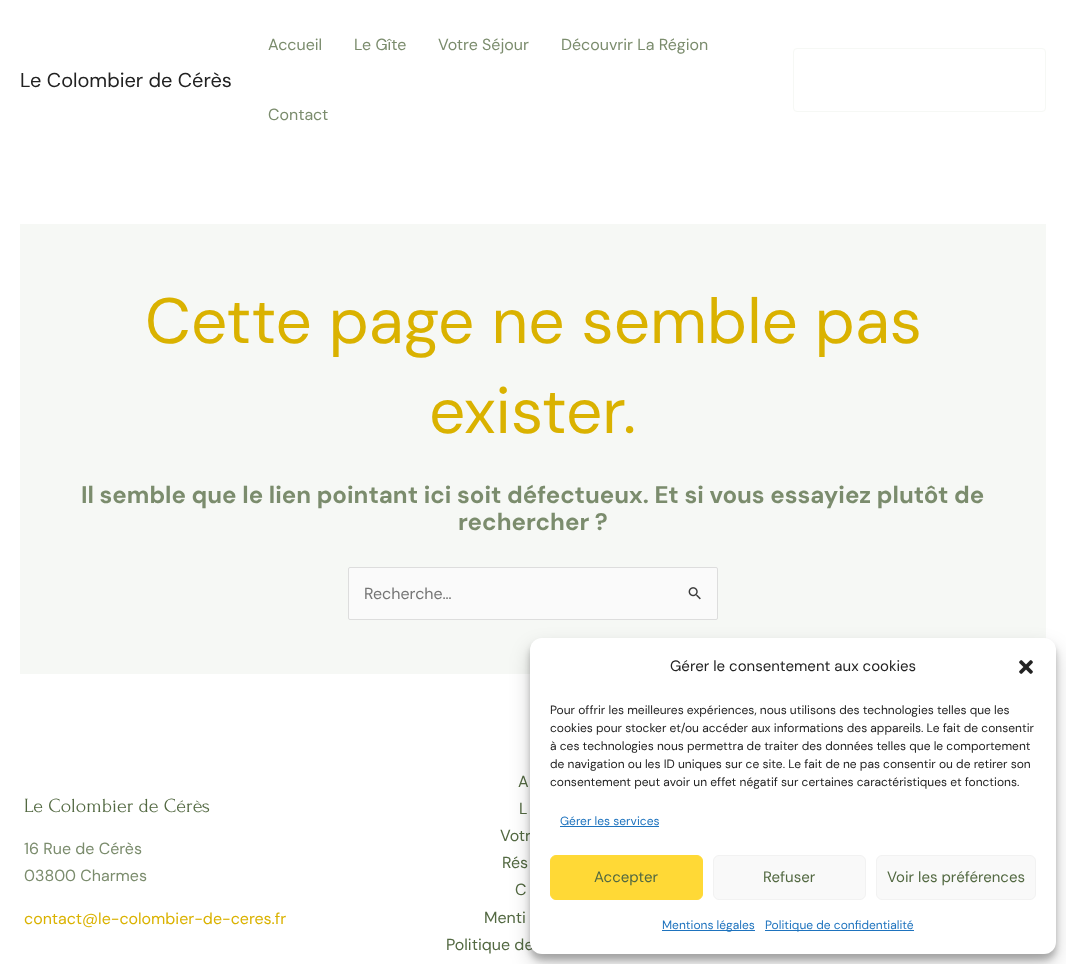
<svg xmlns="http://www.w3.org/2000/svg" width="1066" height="964">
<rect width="100%" height="100%" fill="#fff"/>
<text x="20" y="87" style="font-family:DM Sans;font-size:20px;fill:#222">Le Colombier de Cérès</text>
<text x="268" y="50" style="font-family:DM Sans;font-size:16px;fill:#7b8c6d">Accueil</text>
<text x="354" y="50" style="font-family:DM Sans;font-size:16px;fill:#7b8c6d">Le Gîte</text>
<text x="438" y="50" style="font-family:DM Sans;font-size:16px;fill:#7b8c6d">Votre Séjour</text>
<text x="561" y="50" style="font-family:DM Sans;font-size:16px;fill:#7b8c6d">Découvrir La Région</text>
<text x="268" y="120" style="font-family:DM Sans;font-size:16px;fill:#7b8c6d">Contact</text>
<rect x="793.5" y="48.5" width="252" height="63" rx="3.5" fill="none" stroke="#f6f8f5"/>
<rect x="20" y="224" width="1026" height="450" fill="#f6f8f5"/>
<text x="145" y="343" style="font-family:DM Sans;font-size:64px;fill:#dab200">Cette page ne semble pas</text>
<text x="429" y="433" style="font-family:DM Sans;font-size:64px;fill:#dab200">exister.</text>
<text x="81" y="503" style="font-family:DM Sans;font-size:24px;font-weight:bold;fill:#7b8c6d">Il semble que le lien pointant ici soit défectueux. Et si vous essayiez plutôt de</text>
<text x="458" y="530" style="font-family:DM Sans;font-size:24px;font-weight:bold;fill:#7b8c6d">rechercher ?</text>
<rect x="348.5" y="567.5" width="369" height="52" rx="1.5" fill="#fafafa" stroke="#ddd"/>
<text x="364" y="599" style="font-family:DM Sans;font-size:16px;fill:#757575">Recherche…</text>
<image x="688" y="587" width="13" height="13" href="media/1.png"/>
<text x="24" y="812" style="font-family:Forum;font-size:20px;fill:#536942">Le Colombier de Cérès</text>
<text x="24" y="854" style="font-family:DM Sans;font-size:16px;fill:#7b8c6d">16 Rue de Cérès</text>
<text x="24" y="881" style="font-family:DM Sans;font-size:16px;fill:#7b8c6d">03800 Charmes</text>
<text x="24" y="924" style="font-family:DM Sans;font-size:16px;fill:#dab200">contact@le-colombier-de-ceres.fr</text>
<text x="518" y="787" style="font-family:DM Sans;font-size:16px;fill:#536942">A</text>
<text x="519" y="814" style="font-family:DM Sans;font-size:16px;fill:#536942">L</text>
<text x="500" y="841" style="font-family:DM Sans;font-size:16px;fill:#536942">Votr</text>
<text x="502" y="868" style="font-family:DM Sans;font-size:16px;fill:#536942">Rés</text>
<text x="515" y="895" style="font-family:DM Sans;font-size:16px;fill:#536942">C</text>
<text x="484" y="923" style="font-family:DM Sans;font-size:16px;fill:#536942">Menti</text>
<text x="446" y="950" style="font-family:DM Sans;font-size:16px;fill:#536942">Politique de</text>
<rect x="530" y="644" width="526" height="316" rx="12" fill="#0000003b" filter="blur(3px)"/>
<rect x="530" y="648" width="526" height="316" rx="12" fill="#00000030" filter="blur(10px)"/>
<rect x="530" y="638" width="526" height="316" rx="12" fill="#fff"/>
<text x="670" y="671" style="font-family:DM Sans;font-size:15px;fill:#222">Gérer le consentement aux cookies</text>
<image x="1019" y="660" width="14" height="14" href="media/2.png"/>
<text x="550" y="714" style="font-family:DM Sans;font-size:12px;fill:#222">Pour offrir les meilleures expériences, nous utilisons des technologies telles que les</text>
<text x="550" y="732" style="font-family:DM Sans;font-size:12px;fill:#222">cookies pour stocker et/ou accéder aux informations des appareils. Le fait de consentir</text>
<text x="550" y="750" style="font-family:DM Sans;font-size:12px;fill:#222">à ces technologies nous permettra de traiter des données telles que le comportement</text>
<text x="550" y="768" style="font-family:DM Sans;font-size:12px;fill:#222">de navigation ou les ID uniques sur ce site. Le fait de ne pas consentir ou de retirer son</text>
<text x="550" y="786" style="font-family:DM Sans;font-size:12px;fill:#222">consentement peut avoir un effet négatif sur certaines caractéristiques et fonctions.</text>
<text x="560" y="825" style="font-family:DM Sans;font-size:12px;fill:#1e73be">Gérer les services</text>
<rect x="560" y="826" width="99" height="1" fill="#1e73be"/>
<rect x="550.5" y="855.5" width="152" height="44" rx="5.5" fill="#ffd936" stroke="#ffd936"/>
<text x="594" y="882" style="font-family:DM Sans;font-size:15px;fill:#536942">Accepter</text>
<rect x="713.5" y="855.5" width="152" height="44" rx="5.5" fill="#f9f9f9" stroke="#f2f2f2"/>
<text x="763" y="882" style="font-family:DM Sans;font-size:15px;fill:#536942">Refuser</text>
<rect x="876.5" y="855.5" width="159" height="44" rx="5.5" fill="#f9f9f9" stroke="#f2f2f2"/>
<text x="887" y="882" style="font-family:DM Sans;font-size:15px;fill:#536942">Voir les préférences</text>
<rect x="662" y="930" width="93" height="1" fill="#1e73be"/>
<text x="662" y="929" style="font-family:DM Sans;font-size:12px;fill:#1e73be">Mentions légales</text>
<rect x="765" y="930" width="149" height="1" fill="#1e73be"/>
<text x="765" y="929" style="font-family:DM Sans;font-size:12px;fill:#1e73be">Politique de confidentialité</text>
</svg>
